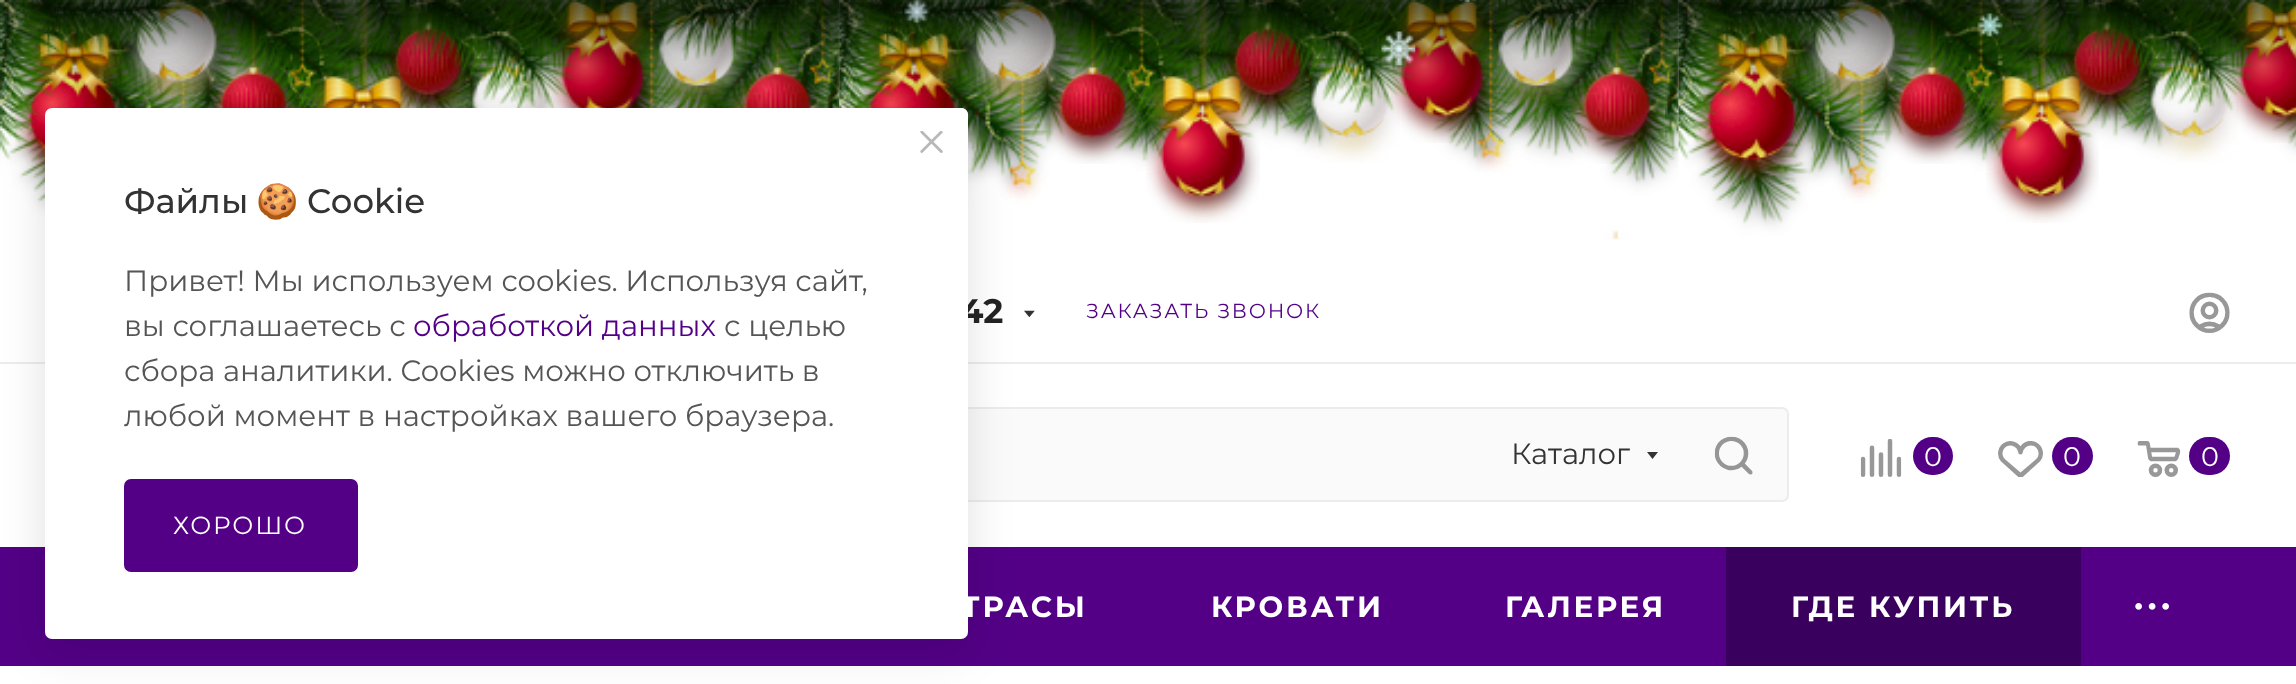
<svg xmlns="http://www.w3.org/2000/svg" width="2296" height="684">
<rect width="100%" height="100%" fill="#fff"/>
<image x="0" y="0" width="2296" height="240" href="media/5.png"/>
<image x="15" y="0" width="114" height="179" href="media/7.png"/>
<image x="0" y="0" width="57" height="160" href="media/6.png"/>
<image x="122" y="0" width="109" height="105" href="media/9.png"/>
<image x="56" y="0" width="137" height="61" href="media/8.png"/>
<image x="309" y="0" width="109" height="108" href="media/10.png"/>
<image x="382" y="0" width="92" height="108" href="media/11.png"/>
<image x="460" y="13" width="101" height="95" href="media/17.png"/>
<image x="398" y="0" width="64" height="70" href="media/12.png"/>
<image x="548" y="0" width="109" height="108" href="media/14.png"/>
<image x="461" y="0" width="113" height="108" href="media/13.png"/>
<image x="646" y="0" width="103" height="108" href="media/15.png"/>
<image x="206" y="20" width="93" height="88" href="media/16.png"/>
<image x="731" y="22" width="93" height="86" href="media/20.png"/>
<image x="650" y="0" width="176" height="63" href="media/18.png"/>
<image x="825" y="0" width="15" height="108" href="media/19.png"/>
<image x="857" y="0" width="114" height="148" href="media/22.png"/>
<image x="839" y="0" width="57" height="108" href="media/21.png"/>
<image x="961" y="0" width="110" height="105" href="media/24.png"/>
<image x="895" y="0" width="138" height="61" href="media/23.png"/>
<image x="1146" y="0" width="114" height="223" href="media/25.png"/>
<image x="1221" y="0" width="92" height="121" href="media/26.png"/>
<image x="1299" y="13" width="101" height="150" href="media/32.png"/>
<image x="1237" y="0" width="64" height="70" href="media/27.png"/>
<image x="1387" y="0" width="110" height="143" href="media/29.png"/>
<image x="1300" y="0" width="113" height="113" href="media/28.png"/>
<image x="1485" y="0" width="104" height="110" href="media/30.png"/>
<image x="1045" y="20" width="93" height="144" href="media/31.png"/>
<image x="1570" y="22" width="94" height="142" href="media/35.png"/>
<image x="1489" y="0" width="176" height="63" href="media/33.png"/>
<image x="1665" y="0" width="14" height="155" href="media/34.png"/>
<image x="1693" y="0" width="117" height="184" href="media/37.png"/>
<image x="1678" y="0" width="57" height="160" href="media/36.png"/>
<image x="1800" y="0" width="110" height="105" href="media/39.png"/>
<image x="1734" y="0" width="138" height="61" href="media/38.png"/>
<image x="1986" y="0" width="113" height="223" href="media/40.png"/>
<image x="2060" y="0" width="92" height="121" href="media/41.png"/>
<image x="2138" y="13" width="101" height="150" href="media/46.png"/>
<image x="2076" y="0" width="64" height="70" href="media/42.png"/>
<image x="2226" y="0" width="70" height="143" href="media/44.png"/>
<image x="2139" y="0" width="114" height="113" href="media/43.png"/>
<image x="1884" y="20" width="93" height="144" href="media/45.png"/>
<rect y="-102" width="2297" height="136" fill="#000000bf" filter="blur(34px)"/>
<image x="904" y="0" width="26" height="24" href="media/1.png"/>
<image x="1458" y="0" width="19" height="3" href="media/2.png"/>
<image x="1977" y="13" width="26" height="24" href="media/3.png"/>
<image x="1381" y="31" width="35" height="35" href="media/4.png"/>
<rect y="362" width="2296" height="2" fill="#ececec"/>
<image x="1024" y="310" width="11" height="7" href="media/48.png"/>
<rect x="604" y="408" width="1184" height="93" rx="6" fill="#fafafa" stroke="#ececec" stroke-width="2"/>
<rect y="547" width="2296" height="119" fill="#530086"/>
<rect x="45" y="119" width="923" height="531" rx="7" fill="#0000001f" filter="blur(22.5px)"/>
<text x="960" y="323" style="font-family:Montserrat;font-size:34px;font-weight:bold;fill:#222">42</text>
<rect x="45" y="108" width="923" height="531" rx="7" fill="#fff"/>
<path d="M896 108h65c4 0 7 3 7 7v65h-65c-4 0-7-3-7-7z" fill="#fff"/>
<image x="920" y="131" width="23" height="22" href="media/47.png"/>
<text x="124" y="213" style="font-family:Montserrat;font-size:34px;font-weight:500;fill:#333">Файлы</text>
<text x="256" y="213" style="font-family:Noto Color Emoji;font-size:34px;fill:#333">🍪</text>
<text x="307" y="213" style="font-family:Montserrat;font-size:34px;font-weight:500;fill:#333">Cookie</text>
<text x="124" y="291" style="font-family:Montserrat;font-size:29.25px;fill:#555">Привет! Мы используем cookies. Используя сайт,</text>
<text x="124" y="336" style="font-family:Montserrat;font-size:29.25px;fill:#555">вы соглашаетесь с</text>
<text x="413" y="336" style="font-family:Montserrat;font-size:29.25px;fill:#530086">обработкой данных</text>
<text x="724" y="336" style="font-family:Montserrat;font-size:29.25px;fill:#555">с целью</text>
<text x="124" y="381" style="font-family:Montserrat;font-size:29.25px;fill:#555">сбора аналитики. Cookies можно отключить в</text>
<text x="124" y="426" style="font-family:Montserrat;font-size:29.25px;fill:#555">любой момент в настройках вашего браузера.</text>
<rect x="125" y="480" width="232" height="91" rx="6" fill="#530086" stroke="#530086" stroke-width="2"/>
<text x="173" y="534" style="font-family:Montserrat;font-size:24.75px;letter-spacing:1.75px;fill:#fff">ХОРОШО</text>
<text x="1086" y="318" style="font-family:Montserrat;font-size:20.25px;letter-spacing:1.75px;fill:#530086">ЗАКАЗАТЬ ЗВОНОК</text>
<image x="2189" y="292" width="41" height="41" href="media/49.png"/>
<text x="1511" y="464" style="font-family:Montserrat;font-size:29.25px;fill:#333">Каталог</text>
<path d="M1647 452h11l-5.5 7z" fill="#333" fill-rule="evenodd"/>
<image x="1714" y="436" width="39" height="39" href="media/50.png"/>
<image x="1860" y="439" width="42" height="38" href="media/51.png"/>
<rect x="1913" y="437" width="40" height="38" rx="19" fill="#530086"/>
<text x="1924" y="466" style="font-family:Montserrat;font-size:27px;fill:#fff">0</text>
<image x="1998" y="441" width="45" height="36" href="media/52.png"/>
<rect x="2052" y="437" width="41" height="38" rx="19" fill="#530086"/>
<text x="2063" y="466" style="font-family:Montserrat;font-size:27px;fill:#fff">0</text>
<image x="2137" y="441" width="44" height="36" href="media/53.png"/>
<rect x="2189" y="437" width="41" height="38" rx="19" fill="#530086"/>
<text x="2201" y="466" style="font-family:Montserrat;font-size:27px;fill:#fff">0</text>
<text x="961" y="617" style="font-family:Montserrat;font-size:29.25px;font-weight:bold;letter-spacing:2.75px;fill:#fff">ТРАСЫ</text>
<text x="1211" y="617" style="font-family:Montserrat;font-size:29.25px;font-weight:bold;letter-spacing:2.75px;fill:#fff">КРОВАТИ</text>
<text x="1505" y="617" style="font-family:Montserrat;font-size:29.25px;font-weight:bold;letter-spacing:2.75px;fill:#fff">ГАЛЕРЕЯ</text>
<rect x="1726" y="547" width="355" height="119" fill="#3a005d"/>
<text x="1791" y="617" style="font-family:Montserrat;font-size:29.25px;font-weight:bold;letter-spacing:2.75px;fill:#fff">ГДЕ КУПИТЬ</text>
<image x="2135" y="603" width="34" height="7" href="media/54.png"/>
</svg>
